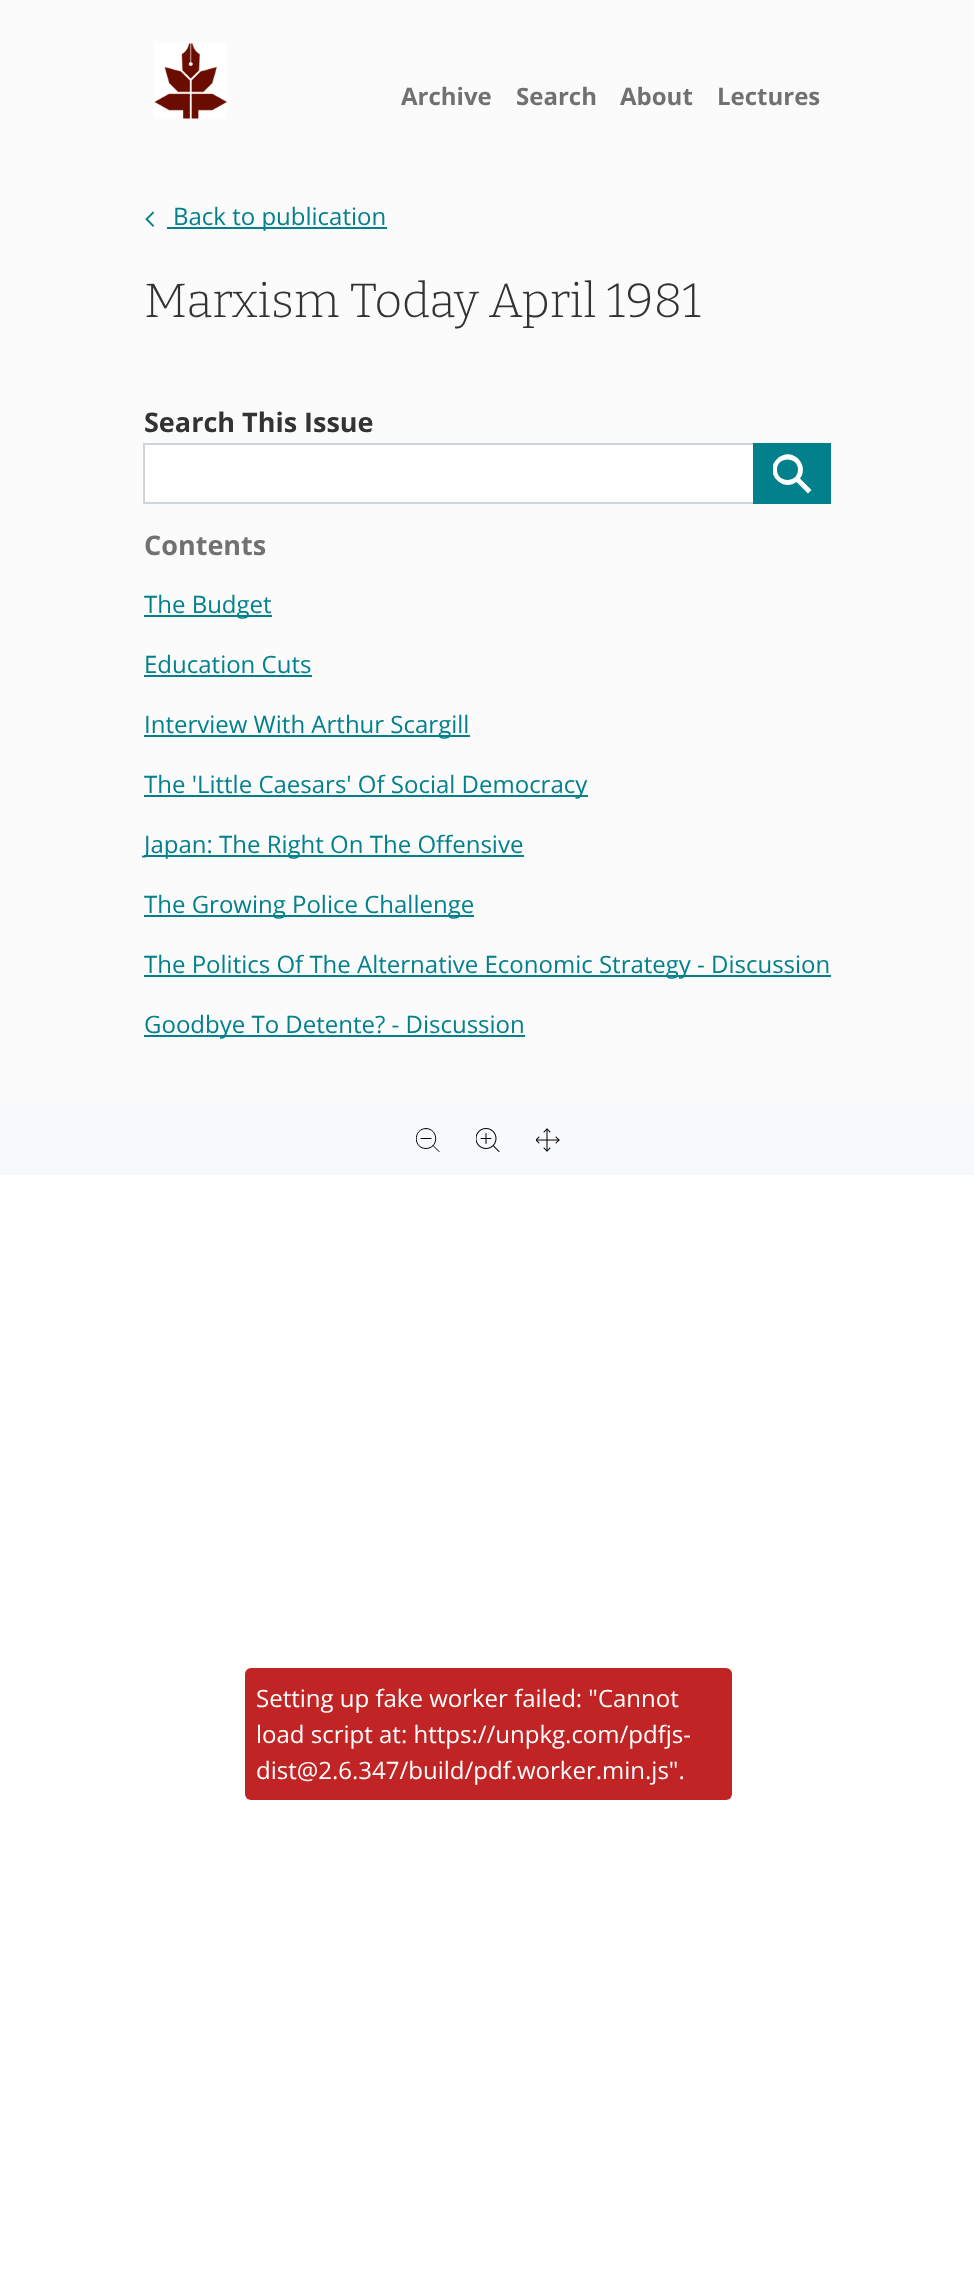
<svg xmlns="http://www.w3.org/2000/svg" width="974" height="2293">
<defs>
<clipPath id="clip1"><rect x="773" y="453" width="39" height="41"/></clipPath>
<clipPath id="clip2"><rect x="416" y="1128" width="24" height="24"/></clipPath>
</defs>
<rect width="100%" height="100%" fill="#fbfbfb"/>
<image x="154" y="43" width="73" height="76" href="media/1.png"/>
<text x="401" y="105" style="font-family:Open Sans;font-size:24px;font-weight:bold;fill:#717171">Archive</text>
<text x="516" y="105" style="font-family:Open Sans;font-size:24px;font-weight:bold;fill:#717171">Search</text>
<text x="620" y="105" style="font-family:Open Sans;font-size:24px;font-weight:bold;fill:#717171">About</text>
<text x="717" y="105" style="font-family:Open Sans;font-size:24px;font-weight:bold;fill:#717171">Lectures</text>
<image x="145" y="211" width="10" height="16" href="media/2.png"/>
<rect x="167" y="227" width="220" height="2" fill="#02808b"/>
<text x="173" y="225" style="font-family:Open Sans;font-size:24px;fill:#02808b">Back to publication</text>
<text x="144" y="317" style="font-family:Bitter;font-size:48px;font-weight:100;fill:#333">Marxism Today April 1981</text>
<text x="144" y="432" style="font-family:Open Sans;font-size:27px;font-weight:bold;fill:#333">Search This Issue</text>
<rect x="144" y="444" width="610" height="59" fill="#fff" stroke="#ced4da" stroke-width="2"/>
<rect x="753" y="443" width="78" height="61" fill="#02808b"/>
<g clip-path="url(#clip1)">
<path d="M800 478.5c10.5-15-9.5-33-23-19.5c-13.5 13 5 33.5 19.5 23l11.5 11.5l3.5-3.5zm-23-9c0 14 21 14 21 0c0-13.5-21-13.5-21 0z" fill="#fff" fill-rule="evenodd"/>
</g>
<text x="144" y="555" style="font-family:Open Sans;font-size:27px;font-weight:bold;fill:#717171">Contents</text>
<rect x="144" y="615" width="128" height="2" fill="#02808b"/>
<text x="144" y="613" style="font-family:Open Sans;font-size:24px;fill:#02808b">The Budget</text>
<text x="144" y="673" style="font-family:Open Sans;font-size:24px;fill:#02808b">Education Cuts</text>
<rect x="144" y="675" width="168" height="2" fill="#02808b"/>
<rect x="144" y="735" width="326" height="2" fill="#02808b"/>
<text x="144" y="733" style="font-family:Open Sans;font-size:24px;fill:#02808b">Interview With Arthur Scargill</text>
<rect x="144" y="795" width="444" height="2" fill="#02808b"/>
<text x="144" y="793" style="font-family:Open Sans;font-size:24px;fill:#02808b">The 'Little Caesars' Of Social Democracy</text>
<rect x="144" y="855" width="380" height="2" fill="#02808b"/>
<text x="144" y="853" style="font-family:Open Sans;font-size:24px;fill:#02808b">Japan: The Right On The Offensive</text>
<rect x="144" y="915" width="330" height="2" fill="#02808b"/>
<text x="144" y="913" style="font-family:Open Sans;font-size:24px;fill:#02808b">The Growing Police Challenge</text>
<rect x="144" y="975" width="687" height="2" fill="#02808b"/>
<text x="144" y="973" style="font-family:Open Sans;font-size:24px;fill:#02808b">The Politics Of The Alternative Economic Strategy - Discussion</text>
<rect x="144" y="1035" width="381" height="2" fill="#02808b"/>
<text x="144" y="1033" style="font-family:Open Sans;font-size:24px;fill:#02808b">Goodbye To Detente? - Discussion</text>
<rect y="1103" width="974" height="72" fill="#f8f9fa"/>
<g clip-path="url(#clip2)">
<path d="M426 1128.5c13 0 13 20 0 20c-13 0-13-20 0-20zm13 23l-6-6m-12-7h10" fill="none" stroke="#000" stroke-linecap="round" stroke-linejoin="round"/>
</g>
<image x="476" y="1128" width="24" height="24" href="media/3.png"/>
<image x="536" y="1128" width="24" height="24" href="media/4.png"/>
<rect y="1175" width="974" height="1118" fill="#fff"/>
<rect x="245" y="1668" width="487" height="132" rx="6" fill="#c02424"/>
<text x="256" y="1707" style="font-family:Open Sans;font-size:24px;fill:#fff">Setting up fake worker failed: "Cannot</text>
<text x="256" y="1743" style="font-family:Open Sans;font-size:24px;fill:#fff">load script at: https://unpkg.com/pdfjs-</text>
<text x="256" y="1779" style="font-family:Open Sans;font-size:24px;fill:#fff">dist@2.6.347/build/pdf.worker.min.js".</text>
</svg>
